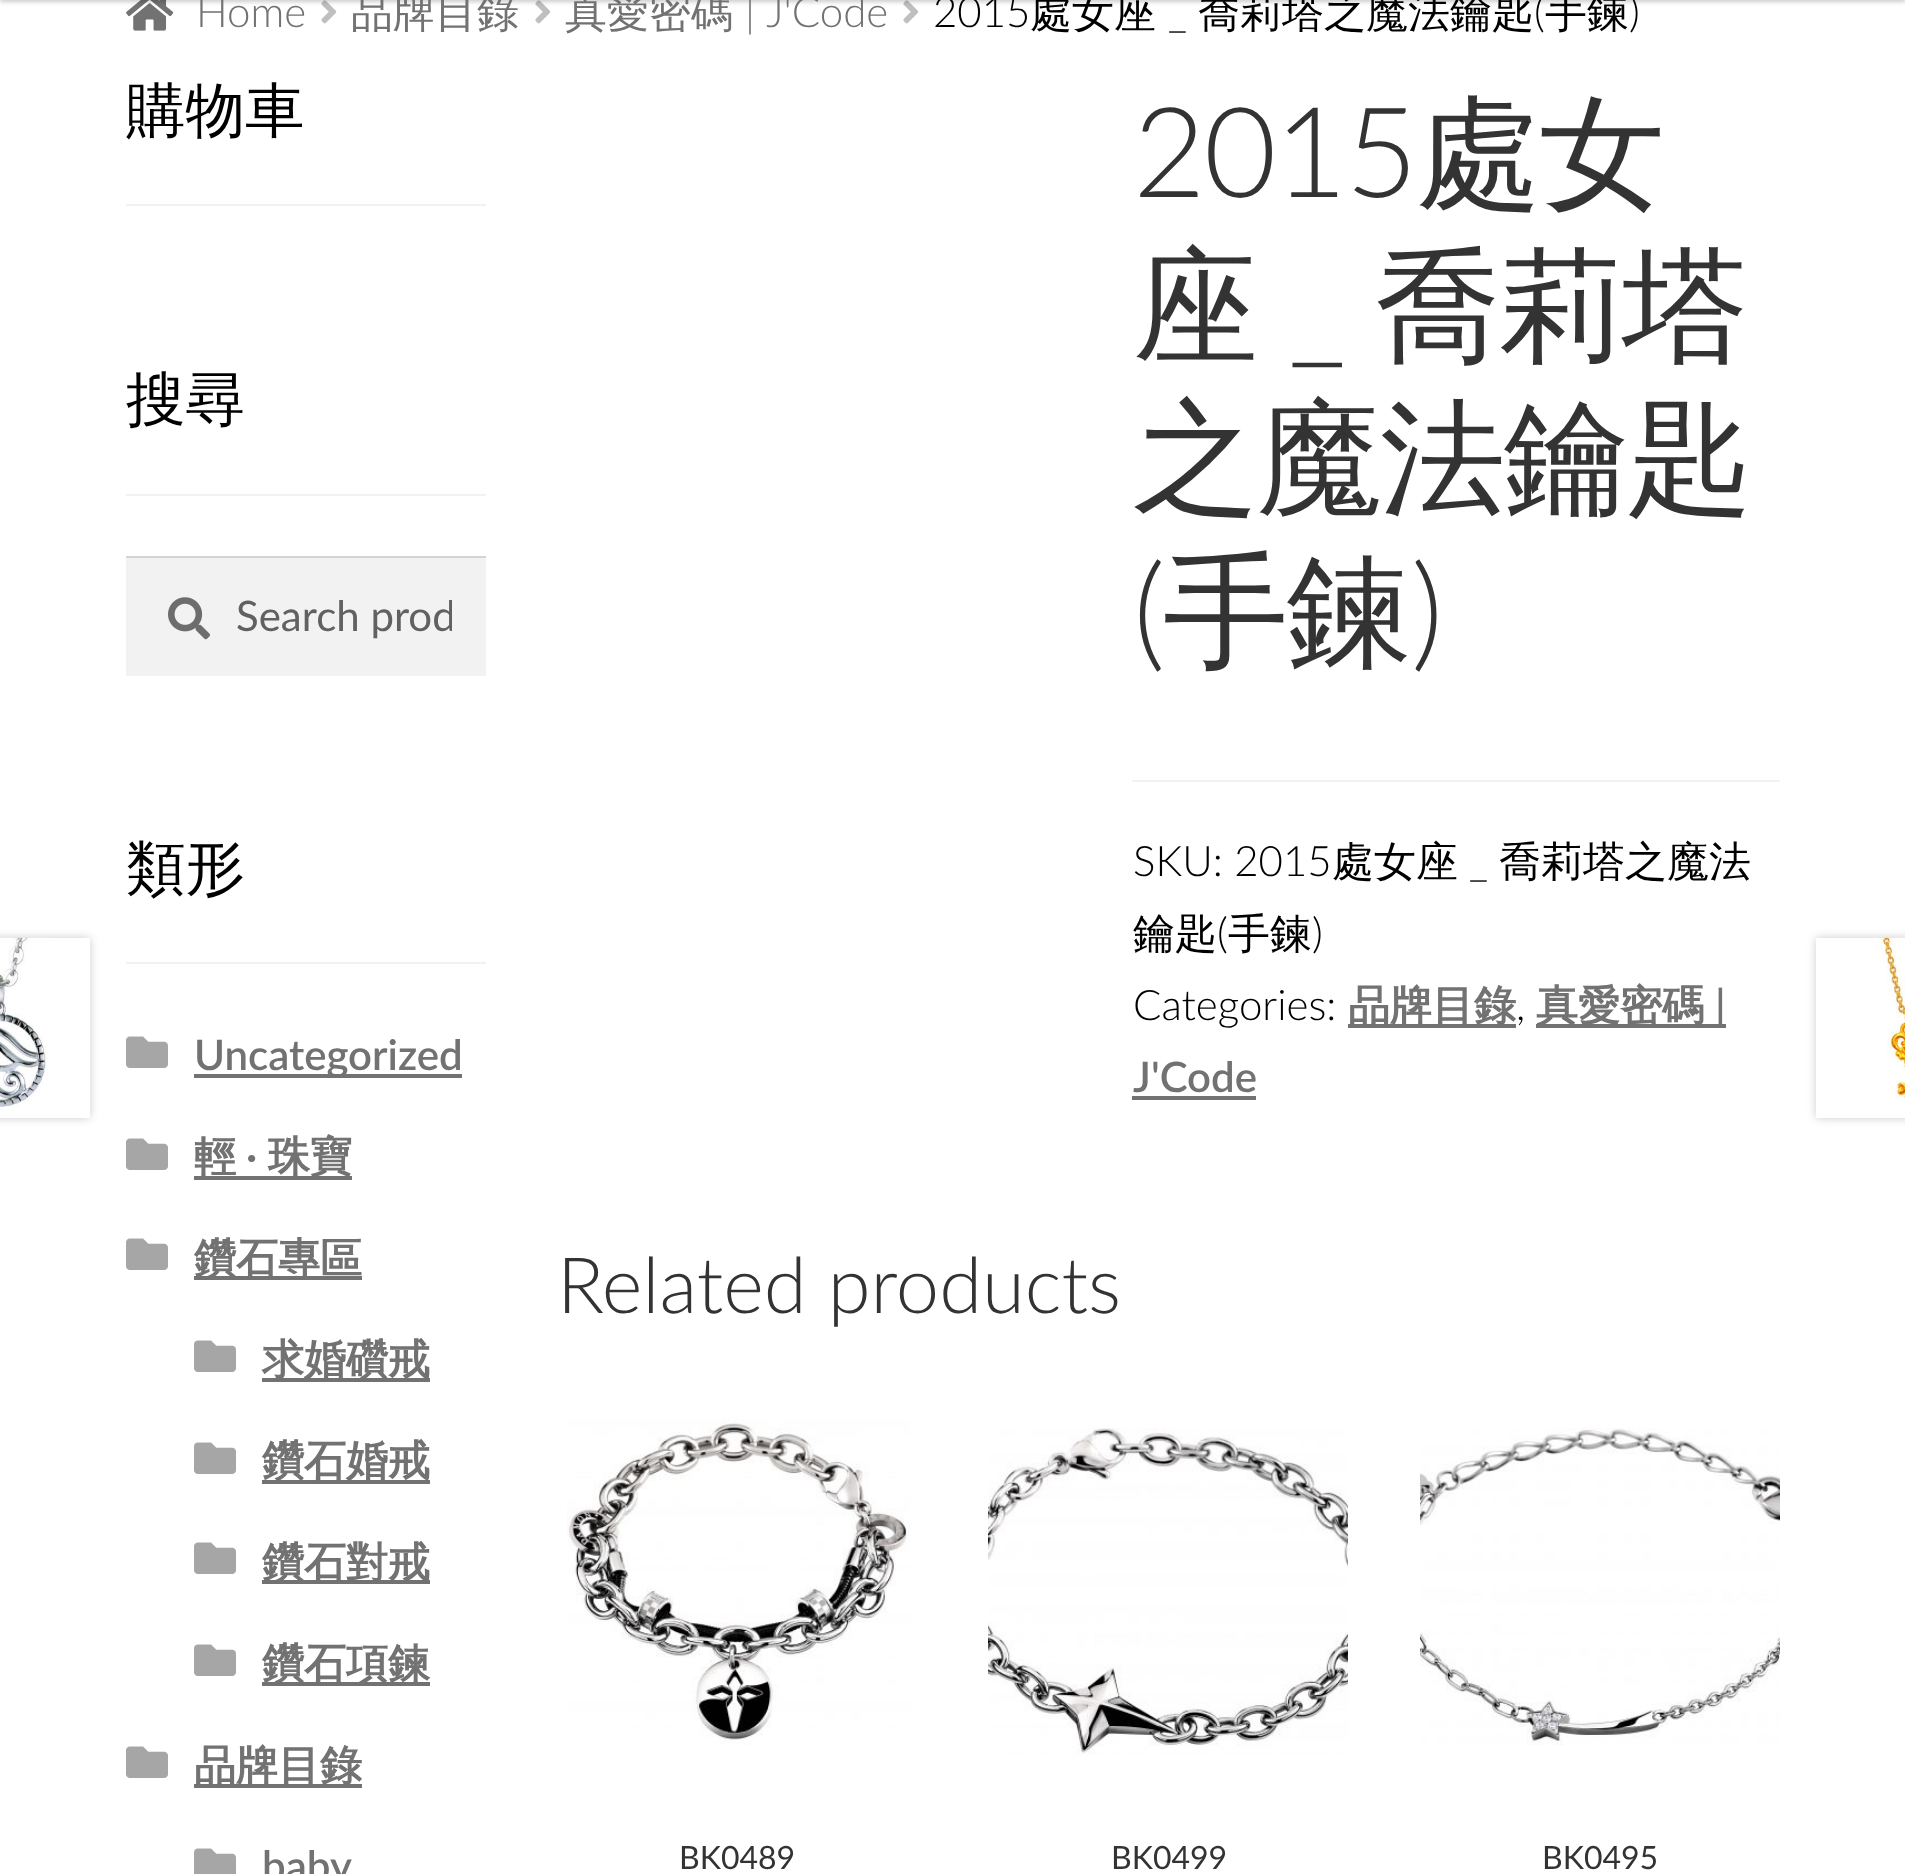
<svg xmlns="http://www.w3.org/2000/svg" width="1905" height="1874">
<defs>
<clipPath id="clip1"><rect x="236" y="590" width="216" height="50"/></clipPath>
<clipPath id="clip2"><path d="M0 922h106v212h-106zm-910 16h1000v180h-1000z" clip-rule="evenodd"/></clipPath>
<clipPath id="clip3"><path d="M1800 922h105v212h-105zm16 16h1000v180h-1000z" clip-rule="evenodd"/></clipPath>
</defs>
<rect width="100%" height="100%" fill="#fff"/>
<image x="126" y="0" width="48" height="31" href="media/1.png"/>
<image x="321" y="0" width="16" height="24" href="media/2.png"/>
<image x="535" y="0" width="16" height="24" href="media/2.png"/>
<image x="903" y="0" width="16" height="24" href="media/2.png"/>
<rect y="-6" width="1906" height="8" fill="#00000033" filter="blur(2px)"/>
<text x="196" y="27" style="font-family:Lato;font-size:42px;font-weight:300;fill:#727272">Home</text>
<text x="351" y="27" style="font-family:WenQuanYi Zen Hei;font-size:42px;font-weight:500;fill:#727272">品牌目錄</text>
<text x="565" y="27" style="font-family:WenQuanYi Zen Hei;font-size:42px;font-weight:500;fill:#727272">真愛密碼</text>
<text x="745" y="27" word-spacing="1" style="font-family:Lato;font-size:42px;font-weight:300;fill:#727272">| J'Code</text>
<text x="933" y="27" style="font-family:Lato;font-size:42px;font-weight:300;fill:#000">2015</text>
<text x="1030" y="27" style="font-family:WenQuanYi Zen Hei;font-size:42px;font-weight:500;fill:#000">處女座</text>
<text x="1168" y="27" style="font-family:Lato;font-size:42px;font-weight:300;fill:#000">_</text>
<text x="1198" y="27" style="font-family:WenQuanYi Zen Hei;font-size:42px;font-weight:500;fill:#000">喬莉塔之魔法鑰匙</text>
<text x="1534" y="27" style="font-family:Lato;font-size:42px;font-weight:300;fill:#000">(</text>
<text x="1545" y="27" style="font-family:WenQuanYi Zen Hei;font-size:42px;font-weight:500;fill:#000">手鍊</text>
<text x="1629" y="27" style="font-family:Lato;font-size:42px;font-weight:300;fill:#000">)</text>
<rect x="126" y="204" width="360" height="2" fill="#f2f2f2"/>
<text x="126" y="131" style="font-family:WenQuanYi Zen Hei;font-size:59.5px;font-weight:500;fill:#000">購物車</text>
<rect x="126" y="494" width="360" height="2" fill="#f2f2f2"/>
<text x="126" y="420" style="font-family:WenQuanYi Zen Hei;font-size:59.5px;font-weight:500;fill:#000">搜尋</text>
<rect x="126" y="558" width="360" height="118" fill="#f2f2f2"/>
<image x="168" y="597" width="42" height="43" href="media/3.png"/>
<rect x="126" y="556" width="360" height="2" fill="#d4d4d4"/>
<g clip-path="url(#clip1)">
<text x="236" y="631" style="font-family:Lato;font-size:42px;fill:#616161">Search prod</text>
</g>
<rect x="126" y="962" width="360" height="2" fill="#f2f2f2"/>
<text x="126" y="889" style="font-family:WenQuanYi Zen Hei;font-size:59.5px;font-weight:500;fill:#000">類形</text>
<image x="126" y="1036" width="42" height="32" href="media/4.png"/>
<rect x="194" y="1074" width="268" height="4" fill="#727272"/>
<text x="194" y="1070" style="font-family:Lato;font-size:42px;font-weight:600;fill:#727272">Uncategorized</text>
<image x="126" y="1138" width="42" height="32" href="media/4.png"/>
<rect x="194" y="1176" width="158" height="4" fill="#727272"/>
<text x="194" y="1171" style="font-family:WenQuanYi Zen Hei;font-size:42px;font-weight:bold;fill:#727272">輕</text>
<text x="246" y="1171" style="font-family:Lato;font-size:42px;font-weight:600;fill:#727272">∙</text>
<text x="268" y="1171" style="font-family:WenQuanYi Zen Hei;font-size:42px;font-weight:bold;fill:#727272">珠寶</text>
<image x="126" y="1238" width="42" height="32" href="media/4.png"/>
<rect x="194" y="1276" width="168" height="4" fill="#727272"/>
<text x="194" y="1273" style="font-family:WenQuanYi Zen Hei;font-size:42px;font-weight:bold;fill:#727272">鑽石專區</text>
<image x="194" y="1340" width="42" height="32" href="media/4.png"/>
<rect x="262" y="1378" width="168" height="4" fill="#727272"/>
<text x="262" y="1374" style="font-family:WenQuanYi Zen Hei;font-size:42px;font-weight:bold;fill:#727272">求婚礸戒</text>
<image x="194" y="1442" width="42" height="32" href="media/4.png"/>
<rect x="262" y="1480" width="168" height="4" fill="#727272"/>
<text x="262" y="1475" style="font-family:WenQuanYi Zen Hei;font-size:42px;font-weight:bold;fill:#727272">鑽石婚戒</text>
<image x="194" y="1542" width="42" height="32" href="media/4.png"/>
<rect x="262" y="1580" width="168" height="4" fill="#727272"/>
<text x="262" y="1577" style="font-family:WenQuanYi Zen Hei;font-size:42px;font-weight:bold;fill:#727272">鑽石對戒</text>
<image x="194" y="1644" width="42" height="32" href="media/4.png"/>
<rect x="262" y="1682" width="168" height="4" fill="#727272"/>
<text x="262" y="1678" style="font-family:WenQuanYi Zen Hei;font-size:42px;font-weight:bold;fill:#727272">鑽石項鍊</text>
<image x="126" y="1746" width="42" height="32" href="media/4.png"/>
<rect x="194" y="1784" width="168" height="4" fill="#727272"/>
<text x="194" y="1780" style="font-family:WenQuanYi Zen Hei;font-size:42px;font-weight:bold;fill:#727272">品牌目錄</text>
<image x="194" y="1848" width="42" height="26" href="media/5.png"/>
<text x="262" y="1881" style="font-family:Lato;font-size:42px;font-weight:600;fill:#727272">baby</text>
<text x="1133" y="197" style="font-family:Lato;font-size:125.5px;font-weight:300;letter-spacing:-2px;fill:#333">2015</text>
<text x="1416" y="197" style="font-family:WenQuanYi Zen Hei;font-size:125.5px;font-weight:500;letter-spacing:-2px;fill:#333">處女</text>
<text x="1133" y="350" style="font-family:WenQuanYi Zen Hei;font-size:125.5px;font-weight:500;letter-spacing:-2px;fill:#333">座</text>
<text x="1289" y="350" style="font-family:Lato;font-size:125.5px;font-weight:300;letter-spacing:-2px;fill:#333">_</text>
<text x="1375" y="350" style="font-family:WenQuanYi Zen Hei;font-size:125.5px;font-weight:500;letter-spacing:-2px;fill:#333">喬莉塔</text>
<text x="1133" y="502" style="font-family:WenQuanYi Zen Hei;font-size:125.5px;font-weight:500;letter-spacing:-2px;fill:#333">之魔法鑰匙</text>
<text x="1133" y="655" style="font-family:Lato;font-size:125.5px;font-weight:300;letter-spacing:-2px;fill:#333">(</text>
<text x="1163" y="655" style="font-family:WenQuanYi Zen Hei;font-size:125.5px;font-weight:500;letter-spacing:-2px;fill:#333">手鍊</text>
<text x="1411" y="655" style="font-family:Lato;font-size:125.5px;font-weight:300;letter-spacing:-2px;fill:#333">)</text>
<rect x="1132" y="780" width="648" height="2" fill="#f2f2f2"/>
<text x="1133" y="876" style="font-family:Lato;font-size:42px;font-weight:300;fill:#000">SKU: 2015</text>
<text x="1332" y="876" style="font-family:WenQuanYi Zen Hei;font-size:42px;font-weight:500;fill:#000">處女座</text>
<text x="1499" y="876" style="font-family:WenQuanYi Zen Hei;font-size:42px;font-weight:500;fill:#000">喬莉塔之魔法</text>
<text x="1469" y="876" style="font-family:Lato;font-size:42px;font-weight:300;fill:#000">_</text>
<text x="1133" y="948" style="font-family:WenQuanYi Zen Hei;font-size:42px;font-weight:500;fill:#000">鑰匙</text>
<text x="1217" y="948" style="font-family:Lato;font-size:42px;font-weight:300;fill:#000">(</text>
<text x="1228" y="948" style="font-family:WenQuanYi Zen Hei;font-size:42px;font-weight:500;fill:#000">手鍊</text>
<text x="1312" y="948" style="font-family:Lato;font-size:42px;font-weight:300;fill:#000">)</text>
<text x="1133" y="1020" style="font-family:Lato;font-size:42px;font-weight:300;fill:#000">Categories:</text>
<rect x="1348" y="1024" width="168" height="4" fill="#727272"/>
<text x="1348" y="1020" style="font-family:WenQuanYi Zen Hei;font-size:42px;font-weight:bold;fill:#727272">品牌目錄</text>
<text x="1516" y="1020" style="font-family:Lato;font-size:42px;font-weight:300;fill:#000">,</text>
<rect x="1536" y="1024" width="190" height="4" fill="#727272"/>
<text x="1536" y="1020" style="font-family:WenQuanYi Zen Hei;font-size:42px;font-weight:bold;fill:#727272">真愛密碼</text>
<text x="1715" y="1020" style="font-family:Lato;font-size:42px;font-weight:600;fill:#727272">|</text>
<text x="1133" y="1092" style="font-family:Lato;font-size:42px;font-weight:600;fill:#727272">J'Code</text>
<rect x="1132" y="1096" width="124" height="4" fill="#727272"/>
<g clip-path="url(#clip2)">
<rect x="-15" y="938" width="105" height="180" fill="#00000033" filter="blur(5px)"/>
</g>
<image x="0" y="937" width="49" height="170" href="media/6.png"/>
<g clip-path="url(#clip3)">
<rect x="1816" y="938" width="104" height="180" fill="#00000033" filter="blur(5px)"/>
</g>
<image x="1878" y="937" width="27" height="165" href="media/7.png"/>
<text x="557" y="1313" style="font-family:Lato;font-size:77.75px;font-weight:300;fill:#333">Related products</text>
<image x="567" y="1419" width="343" height="326" href="media/8.png"/>
<text x="679" y="1869" style="font-family:Lato;font-size:32px;fill:#333">BK0489</text>
<image x="988" y="1428" width="360" height="327" href="media/9.png"/>
<text x="1111" y="1869" style="font-family:Lato;font-size:32px;fill:#333">BK0499</text>
<image x="1420" y="1428" width="360" height="317" href="media/10.png"/>
<text x="1542" y="1869" style="font-family:Lato;font-size:32px;fill:#333">BK0495</text>
</svg>
